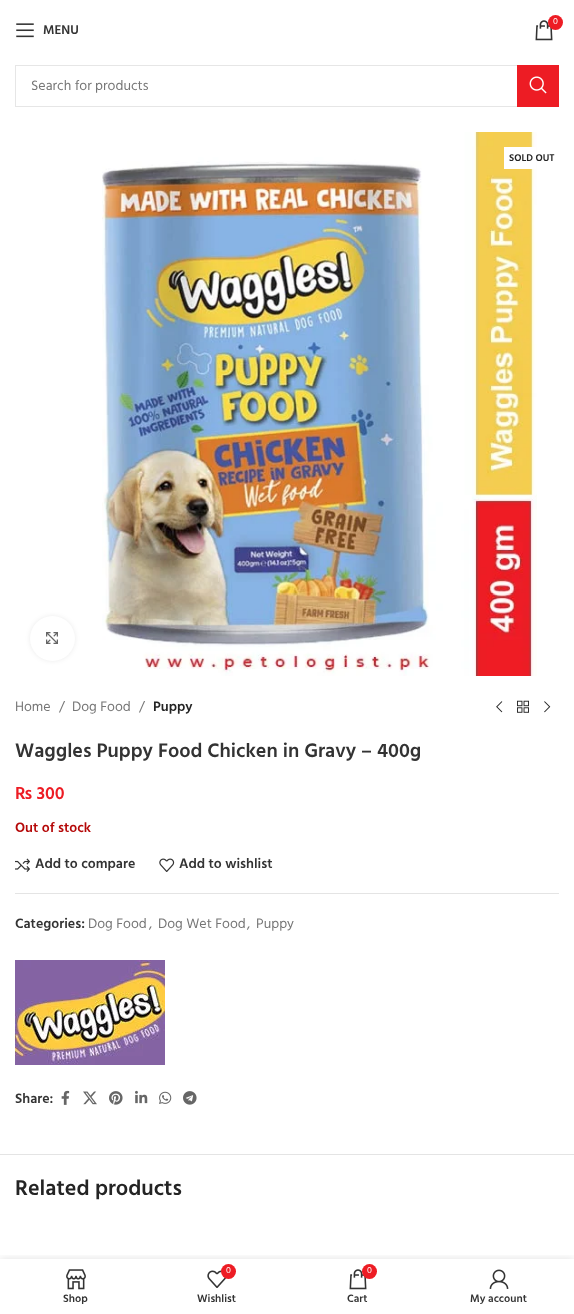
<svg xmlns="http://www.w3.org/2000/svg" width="574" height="1314">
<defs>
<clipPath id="clip1"><rect x="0" y="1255" width="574" height="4"/></clipPath>
</defs>
<rect width="100%" height="100%" fill="#fff"/>
<image x="535" y="20" width="18" height="21" href="media/1.png"/>
<circle cx="555.5" cy="22.5" r="7.5" fill="#ed1c24"/>
<text x="553" y="24" style="font-family:Hind;font-size:9px;fill:#fff">0</text>
<image x="16" y="23" width="18" height="15" href="media/2.png"/>
<text x="43" y="34" style="font-family:Hind;font-size:13px;font-weight:600;fill:#333">MENU</text>
<rect x="15.5" y="65.5" width="543" height="41" fill="none" stroke="#e6e6e6"/>
<text x="31" y="90" style="font-family:Hind;font-size:14px;fill:#767676">Search for products</text>
<rect x="517" y="65" width="42" height="42" fill="#ed1c24"/>
<image x="529" y="76" width="18" height="18" href="media/3.png"/>
<image x="102" y="132" width="435" height="544" href="media/4.png"/>
<rect x="504" y="147" width="32" height="22" fill="#fff"/>
<text x="509" y="161" style="font-family:Hind;font-size:10px;font-weight:600;fill:#242424">SOLD OUT</text>
<rect x="30" y="616" width="45" height="45" rx="22.5" fill="#00000014" filter="blur(2.5px)"/>
<circle cx="52.5" cy="638.5" r="22.5" fill="#fff"/>
<image x="46" y="632" width="12" height="12" href="media/5.png"/>
<text x="15" y="711" style="font-family:Hind;font-size:14px;fill:#767676">Home</text>
<text x="59" y="711" style="font-family:Hind;font-size:14px;fill:#767676">/</text>
<text x="72" y="711" style="font-family:Hind;font-size:14px;fill:#767676">Dog Food</text>
<text x="139" y="711" style="font-family:Hind;font-size:14px;fill:#767676">/</text>
<text x="153" y="711" style="font-family:Hind;font-size:14px;font-weight:600;fill:#242424">Puppy</text>
<image x="496" y="701" width="7" height="12" href="media/6.png"/>
<image x="517" y="700" width="12" height="13" href="media/7.png"/>
<image x="544" y="701" width="7" height="12" href="media/8.png"/>
<text x="15" y="757" style="font-family:Hind;font-size:20px;font-weight:600;fill:#333">Waggles Puppy Food Chicken in Gravy – 400g</text>
<text x="15" y="799" style="font-family:Hind;font-size:18px;font-weight:600;fill:#ed1c24">₨ 300</text>
<text x="15" y="832" style="font-family:Hind;font-size:14px;font-weight:600;fill:#b50808">Out of stock</text>
<image x="15" y="858" width="15" height="14" href="media/9.png"/>
<text x="35" y="868" style="font-family:Hind;font-size:14px;font-weight:600;fill:#333">Add to compare</text>
<image x="159" y="858" width="16" height="14" href="media/10.png"/>
<text x="179" y="868" style="font-family:Hind;font-size:14px;font-weight:600;fill:#333">Add to wishlist</text>
<rect x="15" y="893" width="544" height="1" fill="#e4e4e4"/>
<text x="15" y="928" style="font-family:Hind;font-size:14px;font-weight:600;fill:#333">Categories:</text>
<text x="88" y="928" style="font-family:Hind;font-size:14px;fill:#767676">Dog Food</text>
<text x="149" y="928" style="font-family:Hind;font-size:14px;fill:#767676">,</text>
<text x="158" y="928" style="font-family:Hind;font-size:14px;fill:#767676">Dog Wet Food</text>
<text x="247" y="928" style="font-family:Hind;font-size:14px;fill:#767676">,</text>
<text x="256" y="928" style="font-family:Hind;font-size:14px;fill:#767676">Puppy</text>
<image x="15" y="960" width="150" height="105" href="media/11.png"/>
<text x="15" y="1103" style="font-family:Hind;font-size:14px;font-weight:600;fill:#333">Share:</text>
<image x="61" y="1090" width="9" height="15" href="media/12.png"/>
<image x="83" y="1091" width="14" height="14" href="media/13.png"/>
<image x="109" y="1091" width="14" height="14" href="media/14.png"/>
<image x="135" y="1090" width="13" height="14" href="media/15.png"/>
<image x="159" y="1091" width="13" height="13" href="media/16.png"/>
<image x="183" y="1091" width="14" height="14" href="media/17.png"/>
<rect y="1154" width="574" height="1" fill="#e4e4e4"/>
<text x="15" y="1195" style="font-family:Hind;font-size:22px;font-weight:600;fill:#242424">Related products</text>
<g clip-path="url(#clip1)">
<rect y="1259" width="574" height="55" fill="#0000001f" filter="blur(4.5px)"/>
</g>
<image x="66" y="1269" width="20" height="21" href="media/18.png"/>
<text x="63" y="1302" style="font-family:Hind;font-size:11px;font-weight:600;fill:#333">Shop</text>
<image x="207" y="1270" width="20" height="18" href="media/19.png"/>
<circle cx="228.5" cy="1271.5" r="7.5" fill="#ed1c24"/>
<text x="226" y="1273" style="font-family:Hind;font-size:9px;fill:#fff">0</text>
<text x="197" y="1302" style="font-family:Hind;font-size:11px;font-weight:600;fill:#333">Wishlist</text>
<image x="349" y="1269" width="18" height="21" href="media/1.png"/>
<circle cx="369.5" cy="1271.5" r="7.5" fill="#ed1c24"/>
<text x="367" y="1273" style="font-family:Hind;font-size:9px;fill:#fff">0</text>
<text x="347" y="1302" style="font-family:Hind;font-size:11px;font-weight:600;fill:#333">Cart</text>
<image x="489" y="1269" width="20" height="20" href="media/20.png"/>
<text x="470" y="1302" style="font-family:Hind;font-size:11px;font-weight:600;fill:#333">My account</text>
</svg>
